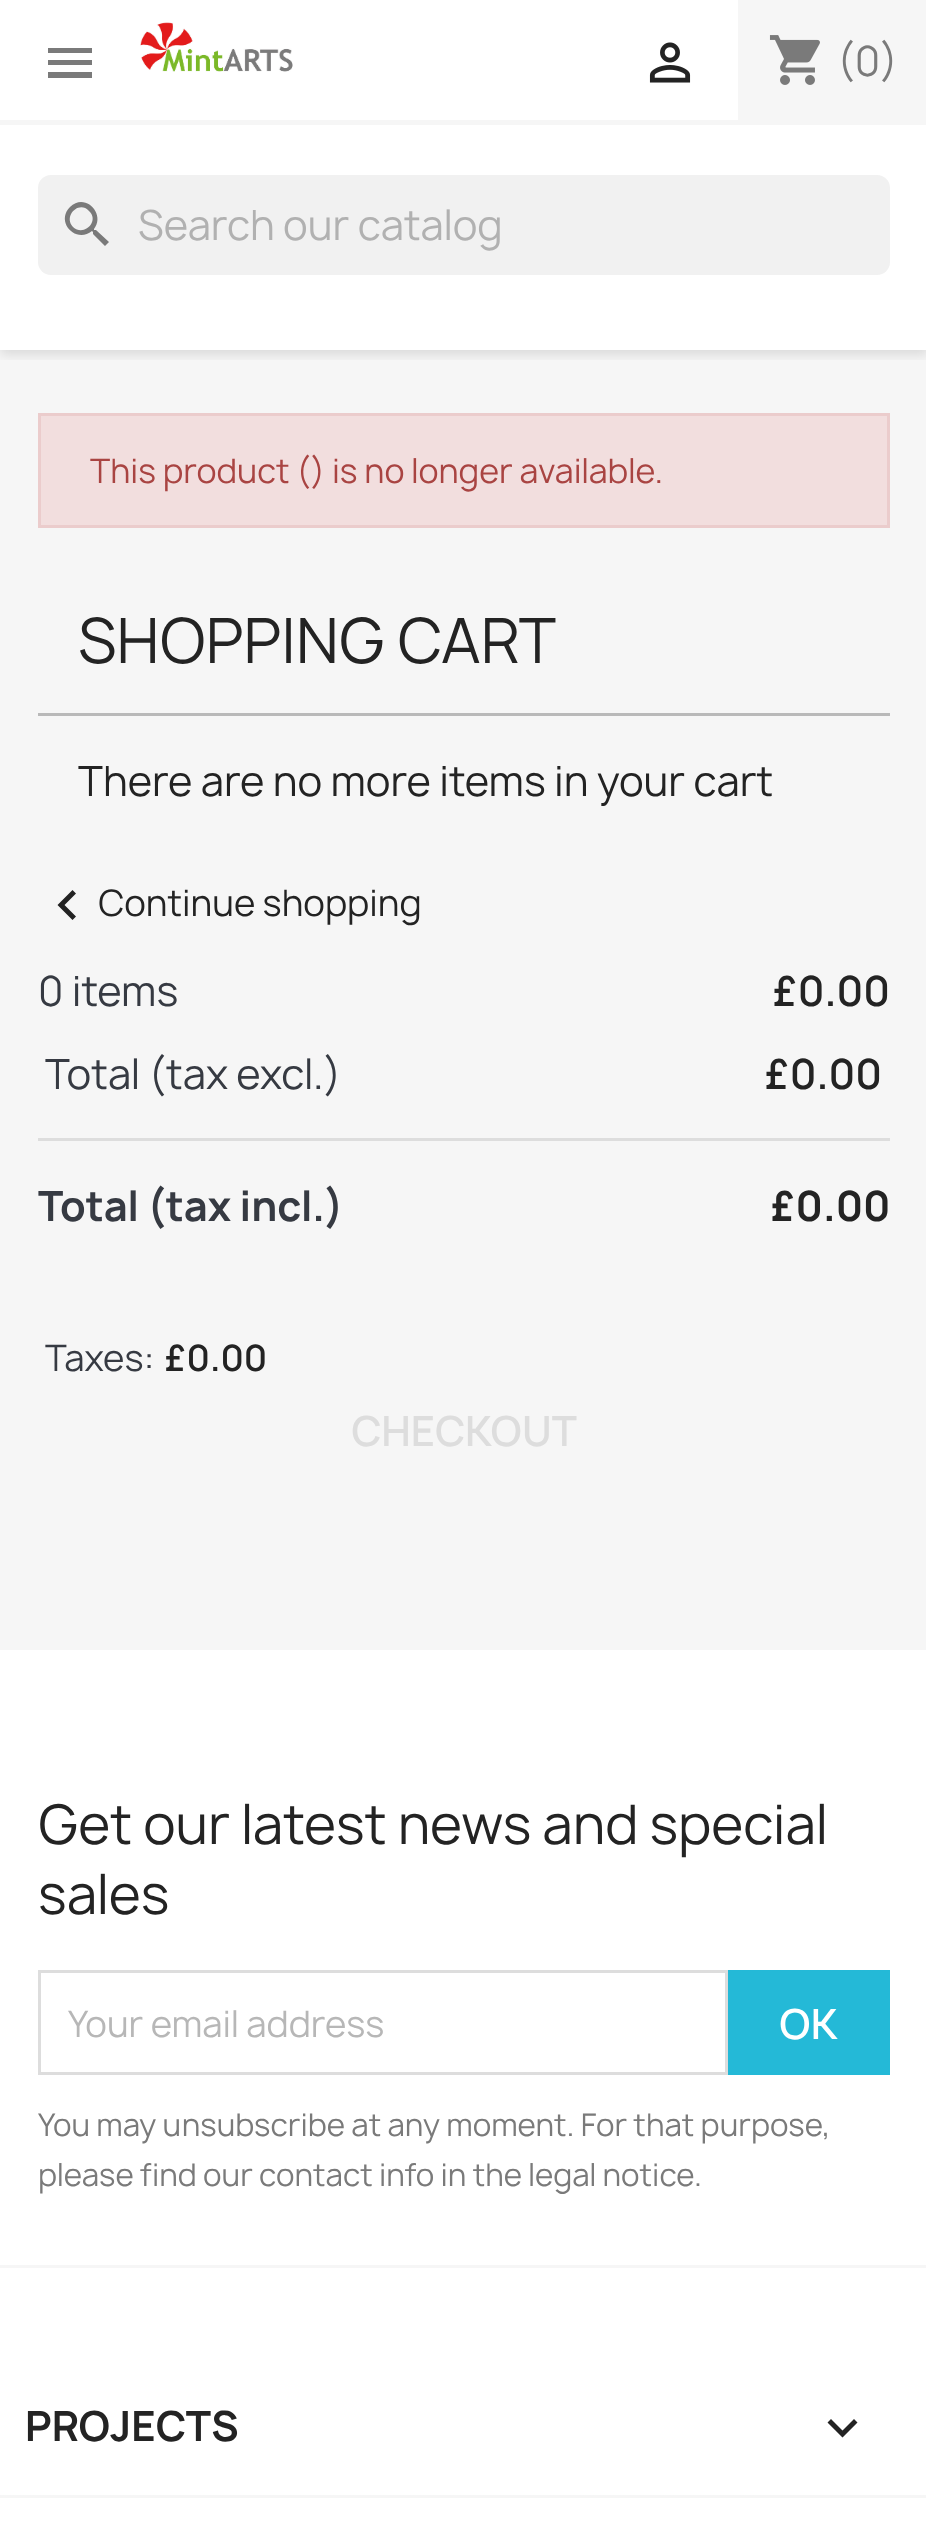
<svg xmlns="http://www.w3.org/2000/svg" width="926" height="2545">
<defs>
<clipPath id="clip1"><rect x="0" y="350" width="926" height="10"/></clipPath>
</defs>
<rect width="100%" height="100%" fill="#fff"/>
<rect y="350" width="926" height="1300" fill="#f6f6f6"/>
<g clip-path="url(#clip1)">
<rect y="5" width="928" height="350" fill="#0000001c" filter="blur(6px)"/>
</g>
<rect y="120" width="926" height="5" fill="#f6f6f6"/>
<path d="M48 48h44v5h-44zm0 17v-5h44v5zm0 13v-6h44v6z" fill="#7a7a7a"/>
<image x="140" y="22" width="153" height="50" href="media/1.png"/>
<image x="649" y="42" width="42" height="41" href="media/2.png"/>
<rect x="738" width="188" height="120" fill="#f6f6f6"/>
<image x="769" y="35" width="51" height="50" href="media/3.png"/>
<text x="837" y="76" style="font-family:Manrope;font-size:40px;fill:#7a7a7a">(0)</text>
<rect x="38" y="175" width="852" height="100" rx="13" fill="#f1f1f1"/>
<path d="M73 227c11 10 27-6 16-16c-10-11-26 5-16 16zm23 3l13 12l-4 4l-12-12v-2l-1-1c-16 13-37-9-22-24c15-15 36 7 24 22v1z" fill="#7a7a7a"/>
<text x="138" y="240" style="font-family:Manrope;font-size:40px;fill:#b1b1b1">Search our catalog</text>
<rect x="39.5" y="414.5" width="849" height="112" fill="#f2dede" stroke="#ebcccc" stroke-width="3"/>
<text x="90" y="483" style="font-family:Manrope;font-size:32.5px;fill:#a94442">This product () is no longer available.</text>
<text x="78" y="663" style="font-family:Manrope;font-size:60px;fill:#232323">SHOPPING CART</text>
<rect x="38" y="713" width="852" height="3" fill="#b9b9b9"/>
<text x="78" y="796" style="font-family:Manrope;font-size:40px;fill:#232323">There are no more items in your cart</text>
<path d="M76 893.5l-11.5 11.5l11.5 11.5l-3.5 3.5l-15-15l15-15z" fill="#232323"/>
<text x="98" y="916" style="font-family:Manrope;font-size:35px;fill:#232323">Continue shopping</text>
<text x="38" y="1006" style="font-family:Manrope;font-size:40px;fill:#363a42">0 items</text>
<text x="772" y="1006" style="font-family:Manrope;font-size:40px;font-weight:600;fill:#232323">£0.00</text>
<text x="45" y="1089" style="font-family:Manrope;font-size:40px;fill:#363a42">Total (tax excl.)</text>
<text x="764" y="1089" style="font-family:Manrope;font-size:40px;font-weight:600;fill:#232323">£0.00</text>
<rect x="38" y="1138" width="852" height="3" fill="#ddd"/>
<text x="38" y="1221" style="font-family:Manrope;font-size:40px;font-weight:bold;fill:#363a42">Total (tax incl.)</text>
<text x="770" y="1221" style="font-family:Manrope;font-size:40px;font-weight:bold;fill:#232323">£0.00</text>
<text x="45" y="1371" style="font-family:Manrope;font-size:35px;fill:#363a42">Taxes:</text>
<text x="164" y="1371" style="font-family:Manrope;font-size:35px;font-weight:600;fill:#232323">£0.00</text>
<text x="351" y="1446" style="font-family:Manrope;font-size:40px;font-weight:600;fill:#ddd">CHECKOUT</text>
<rect y="2265" width="926" height="3" fill="#f6f6f6"/>
<text x="38" y="1844" style="font-family:Manrope;font-size:52.5px;fill:#232323">Get our latest news and special</text>
<text x="38" y="1914" style="font-family:Manrope;font-size:52.5px;fill:#232323">sales</text>
<rect x="39.5" y="1971.5" width="687" height="102" fill="none" stroke="#ddd" stroke-width="3"/>
<text x="68" y="2037" style="font-family:Manrope;font-size:35px;fill:#b7b7b7">Your email address</text>
<rect x="728" y="1970" width="162" height="105" fill="#24b9d7"/>
<text x="779" y="2039" style="font-family:Manrope;font-size:40px;font-weight:600;fill:#fff">OK</text>
<text x="38" y="2136" style="font-family:Manrope;font-size:30px;fill:#7a7a7a">You may unsubscribe at any moment. For that purpose,</text>
<text x="38" y="2186" style="font-family:Manrope;font-size:30px;fill:#7a7a7a">please find our contact info in the legal notice.</text>
<rect y="2495" width="926" height="3" fill="#f6f6f6"/>
<text x="25" y="2441" style="font-family:Manrope;font-size:40px;font-weight:bold;fill:#232323">PROJECTS</text>
<path d="M831 2419l11.5 11.5l11.5-11.5l3.5 3.5l-15 15l-15-15z" fill="#232323"/>
</svg>
